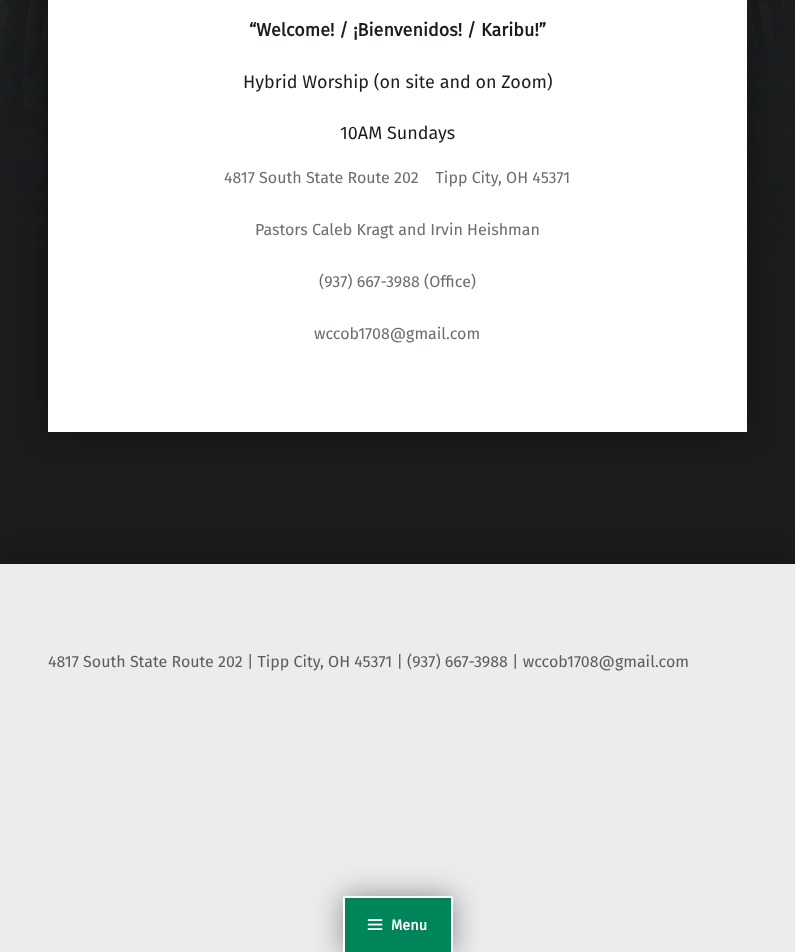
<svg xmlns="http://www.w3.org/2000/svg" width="795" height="952">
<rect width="100%" height="100%" fill="#1a1c1e"/>
<image x="0" y="0" width="795" height="275" href="media/1.png"/>
<rect x="48" y="-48" width="699" height="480" fill="#00000066" filter="blur(16px)"/>
<rect x="48" width="699" height="432" fill="#fff"/>
<text x="249" y="36" style="font-family:Fira Sans;font-size:18px;font-weight:bold;fill:#1a1c1e">“Welcome! / ¡Bienvenidos! / Karibu!”</text>
<text x="243" y="88" style="font-family:Fira Sans;font-size:18px;fill:#1a1c1e">Hybrid Worship (on site and on Zoom)</text>
<text x="340" y="139" style="font-family:Fira Sans;font-size:18px;fill:#1a1c1e">10AM Sundays</text>
<text x="224" y="183" style="font-family:Fira Sans;font-size:16px;fill:#6a6c6e" xml:space="preserve">4817 South State Route 202    Tipp City, OH 45371</text>
<text x="255" y="235" style="font-family:Fira Sans;font-size:16px;fill:#6a6c6e">Pastors Caleb Kragt and Irvin Heishman</text>
<text x="319" y="287" style="font-family:Fira Sans;font-size:16px;fill:#6a6c6e">(937) 667-3988 (Office)</text>
<text x="314" y="339" style="font-family:Fira Sans;font-size:16px;fill:#6a6c6e">wccob1708@gmail.com</text>
<rect y="564" width="795" height="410" fill="#00000066" filter="blur(16px)"/>
<rect y="564" width="795" height="388" fill="#eaecee"/>
<text x="48" y="667" style="font-family:Fira Sans;font-size:16px;fill:#5a5c5e">4817 South State Route 202 | Tipp City, OH 45371 | (937) 667-3988 | wccob1708@gmail.com</text>
<rect x="343" y="896" width="110" height="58" rx="2" fill="#00000066" filter="blur(14.5px)"/>
<rect x="344" y="897" width="108" height="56" rx="1" fill="#00855b" stroke="#fff" stroke-width="2"/>
<image x="367" y="919" width="16" height="11" href="media/2.png"/>
<text x="391" y="930" style="font-family:Fira Sans;font-size:14.5px;font-weight:bold;fill:#fff">Menu</text>
</svg>
